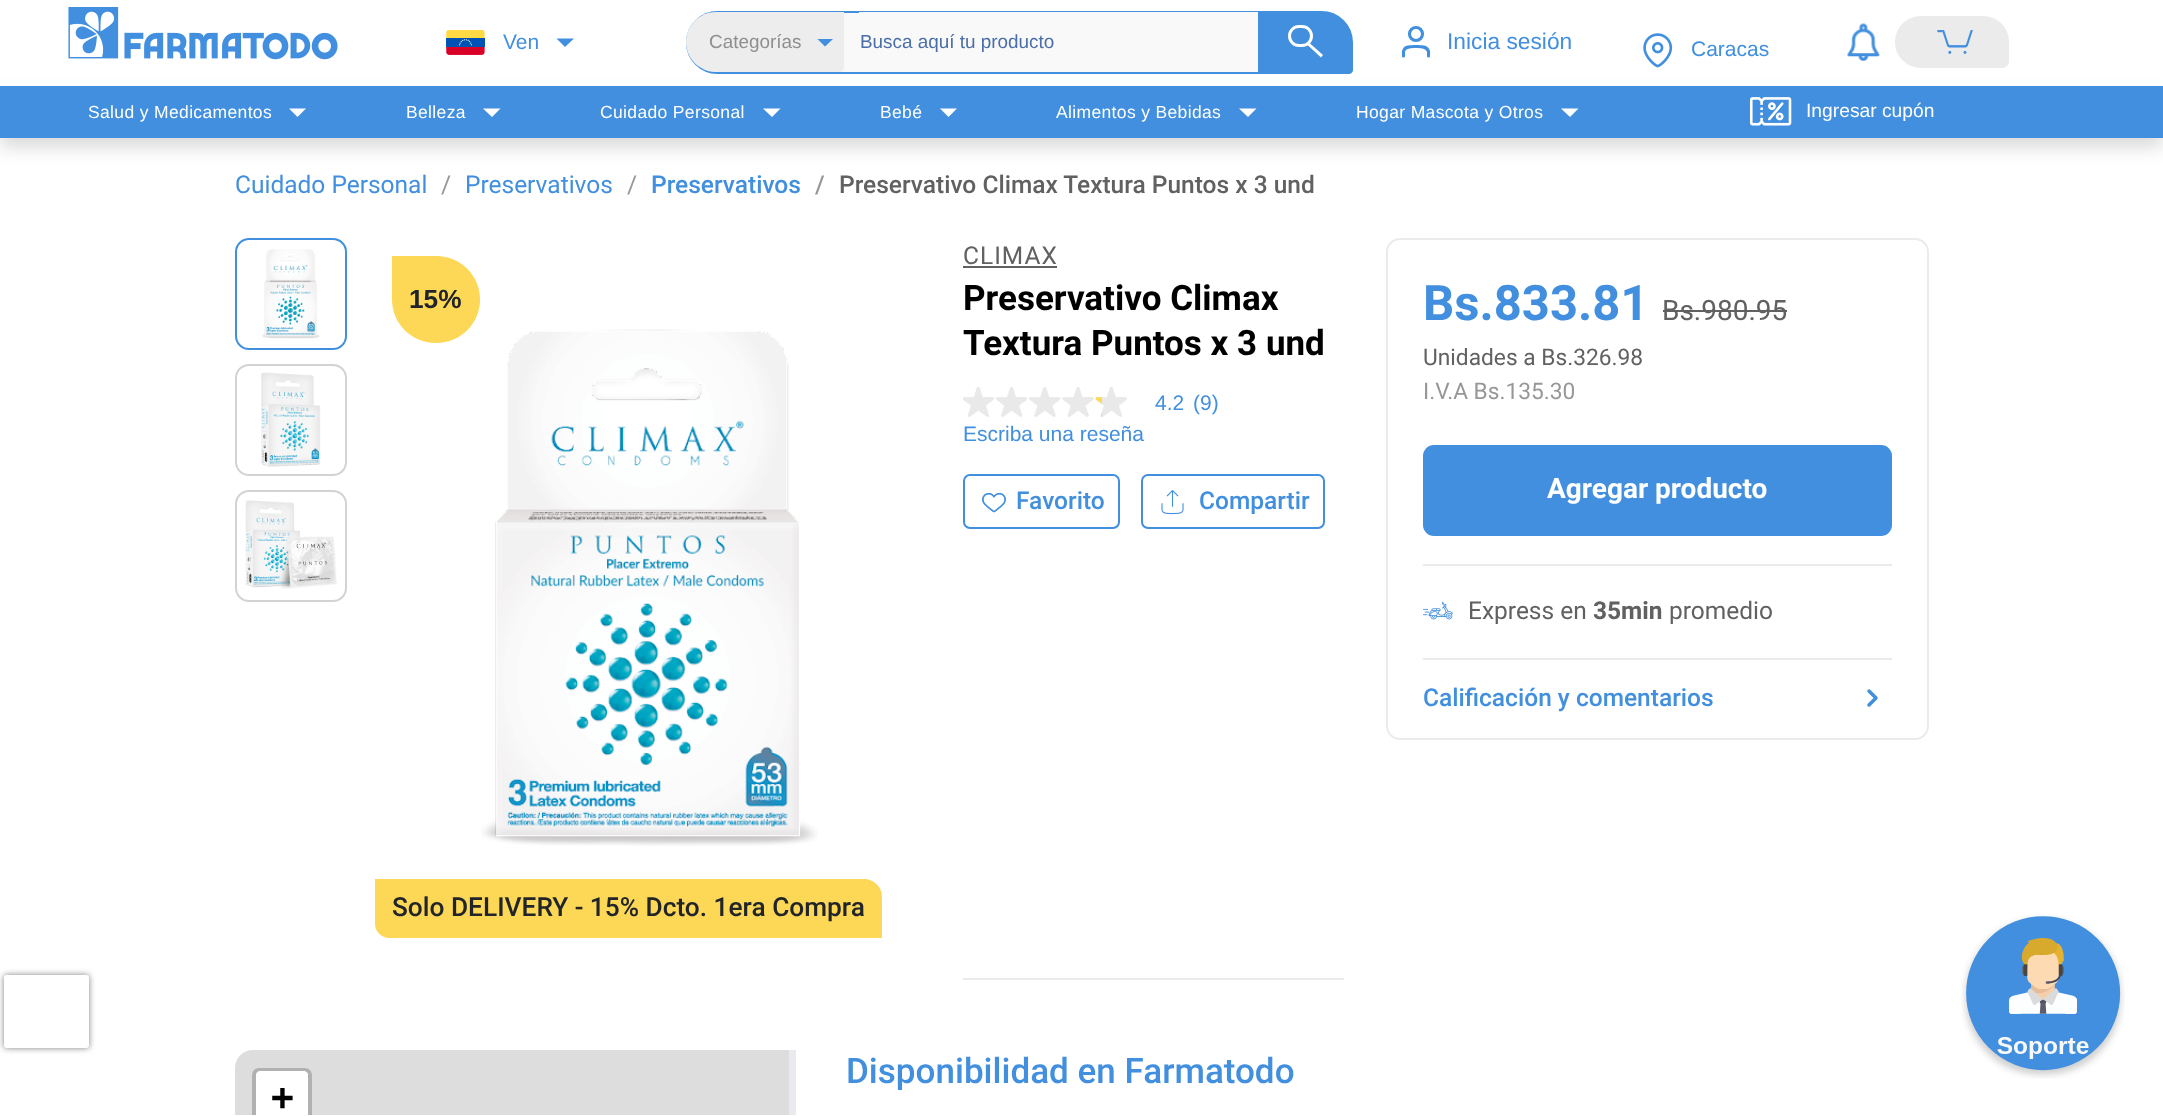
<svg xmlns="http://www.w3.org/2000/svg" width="2163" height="1116">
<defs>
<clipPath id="clip1"><path d="M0 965h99v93h-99zm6.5 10h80c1.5 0 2.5 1 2.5 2.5v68c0 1.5-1 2.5-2.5 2.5h-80c-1.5 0-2.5-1-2.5-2.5v-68c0-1.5 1-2.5 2.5-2.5z" clip-rule="evenodd"/></clipPath>
<clipPath id="clip2"><rect x="235" y="1050" width="554" height="65"/></clipPath>
</defs>
<rect width="100%" height="100%" fill="#fff"/>
<g clip-path="url(#clip1)">
<rect x="4" y="975" width="85" height="73" rx="2.5" fill="#808080" filter="blur(3px)"/>
</g>
<rect y="95" width="2163" height="52" fill="#00000026" filter="blur(9px)"/>
<rect y="82" width="2163" height="4" fill="#fff"/>
<image x="68" y="7" width="270" height="53" href="media/1.png"/>
<image x="446" y="30" width="39" height="25" href="media/2.png"/>
<text x="503" y="49" style="font-family:Liberation Sans;font-size:21px;fill:#418fde">Ven</text>
<path d="M556.5 38.5h17.5l-9 8.5z" fill="#418fde"/>
<rect x="687" y="12" width="651" height="61" rx="30.5" fill="#f9f9f9" stroke="#418fde" stroke-width="2"/>
<path d="M716 12h128v56c0 2-2 4-4 4h-124c-16.5 0-30-13.5-30-30c0-16.5 13.5-30 30-30z" fill="#ededed"/>
<text x="709" y="48" style="font-family:Liberation Sans;font-size:18.9px;fill:#8f8f8f">Categorías</text>
<path d="M817.5 39h15.5l-8 7.5z" fill="#418fde"/>
<path d="M859 12h462c17.5 0 32 14.5 32 32v24c0 2-2 4-4 4h-490z" fill="#f9f9f9"/>
<text x="860" y="48" style="font-family:Liberation Sans;font-size:18.9px;fill:#4a6ea8">Busca aquí tu producto</text>
<path d="M1259 12h62.5c17 0 30.5 13.5 30.5 30.5v27.5c0 1.5-1.5 3-3 3h-90z" fill="#418fde" stroke="#418fde" stroke-width="2"/>
<rect x="1289.5" y="26.5" width="22" height="19" rx="9.5" fill="none" stroke="#fff" stroke-width="3"/>
<path d="M1309.5 43l13.5 12l-2 2.5l-13.5-12.5z" fill="#fff"/>
<path d="M1428.5 56v-4.5c-1.5-5.5-8-5-12.5-5c-4.5 0-11.5-.5-12.5 5v4.5" fill="none" stroke="#418fde" stroke-width="3.1" stroke-linecap="round" stroke-linejoin="round"/>
<circle cx="1416" cy="34" r="6.5" fill="none" stroke="#418fde" stroke-width="3.1"/>
<text x="1447" y="49" style="font-family:Liberation Sans;font-size:22.75px;fill:#418fde">Inicia sesión</text>
<image x="1643" y="33" width="30" height="35" href="media/3.png"/>
<text x="1691" y="56" style="font-family:Liberation Sans;font-size:21px;fill:#418fde">Caracas</text>
<image x="1847" y="23" width="33" height="38" href="media/4.png"/>
<path d="M1921 16h62c14.5 0 26 11.5 26 26v19c0 4-3 7-7 7h-81c-14.5 0-26-11.5-26-26c0-14.5 11.5-26 26-26z" fill="#ebebeb"/>
<image x="1937" y="30" width="36" height="24" href="media/5.png"/>
<rect y="86" width="2163" height="52" fill="#418fde"/>
<text x="88" y="118" style="font-family:Liberation Sans;font-size:17.5px;letter-spacing:0.35px;fill:#fff">Salud y Medicamentos</text>
<path d="M289 108.5h17l-8.5 8.5z" fill="#fff"/>
<text x="406" y="118" style="font-family:Liberation Sans;font-size:17.5px;letter-spacing:0.35px;fill:#fff">Belleza</text>
<path d="M483 108.5h17.5l-8.5 8.5z" fill="#fff"/>
<text x="600" y="118" style="font-family:Liberation Sans;font-size:17.5px;letter-spacing:0.35px;fill:#fff">Cuidado Personal</text>
<path d="M763 108.5h17.5l-8.5 8.5z" fill="#fff"/>
<text x="880" y="118" style="font-family:Liberation Sans;font-size:17.5px;letter-spacing:0.35px;fill:#fff">Bebé</text>
<path d="M940 108.5h17l-8.5 8.5z" fill="#fff"/>
<text x="1056" y="118" style="font-family:Liberation Sans;font-size:17.5px;letter-spacing:0.35px;fill:#fff">Alimentos y Bebidas</text>
<path d="M1239 108.5h17.5l-8.5 8.5z" fill="#fff"/>
<text x="1356" y="118" style="font-family:Liberation Sans;font-size:17.5px;letter-spacing:0.35px;fill:#fff">Hogar Mascota y Otros</text>
<path d="M1561 108.5h17.5l-8.5 8.5z" fill="#fff"/>
<image x="1750" y="97" width="42" height="29" href="media/6.png"/>
<text x="1806" y="117" style="font-family:Liberation Sans;font-size:19.25px;fill:#fff">Ingresar cupón</text>
<text x="235" y="193" style="font-family:Roboto;font-size:24.5px;fill:#418fde">Cuidado Personal</text>
<text x="441" y="193" style="font-family:Roboto;font-size:24.5px;fill:#979797">/</text>
<text x="465" y="193" style="font-family:Roboto;font-size:24.5px;fill:#418fde">Preservativos</text>
<text x="627" y="193" style="font-family:Roboto;font-size:24.5px;fill:#979797">/</text>
<text x="651" y="193" style="font-family:Roboto;font-size:24.5px;font-weight:500;fill:#418fde">Preservativos</text>
<text x="815" y="193" style="font-family:Roboto;font-size:24.5px;font-weight:500;fill:#979797">/</text>
<text x="839" y="193" style="font-family:Roboto;font-size:24.5px;font-weight:500;fill:#616161">Preservativo Climax Textura Puntos x 3 und</text>
<rect x="236" y="239" width="110" height="110" rx="13" fill="none" stroke="#418fde" stroke-width="2"/>
<image x="262" y="249" width="58" height="90" href="media/7.png"/>
<rect x="236" y="365" width="110" height="110" rx="13" fill="none" stroke="#d3d3d3" stroke-width="2"/>
<image x="261" y="372" width="60" height="95" href="media/8.png"/>
<rect x="236" y="491" width="110" height="110" rx="13" fill="none" stroke="#d3d3d3" stroke-width="2"/>
<image x="245" y="500" width="92" height="89" href="media/9.png"/>
<path d="M392 256h44.5c24 0 43.5 19.5 43.5 43.5c0 24-19.5 43.5-43.5 43.5h-1c-24 0-43.5-19.5-43.5-43.5z" fill="#fdd756"/>
<text x="409" y="308" style="font-family:Liberation Sans;font-size:26.25px;font-weight:bold;fill:#212529">15%</text>
<image x="481" y="329" width="337" height="517" href="media/10.png"/>
<path d="M375 879h489c10 0 18 8 18 18v41h-493c-7.5 0-14-6.5-14-14z" fill="#fdd756"/>
<text x="392" y="916" style="font-family:Roboto;font-size:26.25px;font-weight:500;fill:#212529">Solo DELIVERY - 15% Dcto. 1era Compra</text>
<rect x="963" y="978" width="381" height="2" fill="#ebebeb"/>
<text x="963" y="264" style="font-family:Roboto;font-size:24.5px;letter-spacing:1px;fill:#616161">CLIMAX</text>
<rect x="963" y="266" width="94" height="2" fill="#616161"/>
<text x="963" y="310" style="font-family:Roboto;font-size:35px;font-weight:bold;fill:#000">Preservativo Climax</text>
<text x="963" y="355" style="font-family:Roboto;font-size:35px;font-weight:bold;fill:#000">Textura Puntos x 3 und</text>
<image x="963" y="387" width="31" height="30" href="media/11.png"/>
<image x="996" y="387" width="31" height="30" href="media/12.png"/>
<image x="1029" y="387" width="32" height="30" href="media/13.png"/>
<image x="1062" y="387" width="32" height="30" href="media/14.png"/>
<image x="1095" y="387" width="32" height="30" href="media/15.png"/>
<text x="1155" y="410" style="font-family:Liberation Sans;font-size:21px;fill:#418fde">4.2</text>
<text x="1193" y="410" style="font-family:Liberation Sans;font-size:21px;fill:#418fde">(9)</text>
<text x="963" y="441" style="font-family:Liberation Sans;font-size:21px;fill:#418fde">Escriba una reseña</text>
<rect x="964" y="475" width="155" height="53" rx="6" fill="none" stroke="#418fde" stroke-width="2"/>
<image x="982" y="493" width="24" height="20" href="media/16.png"/>
<text x="1016" y="509" style="font-family:Roboto;font-size:24.5px;font-weight:500;fill:#418fde">Favorito</text>
<rect x="1142" y="475" width="182" height="53" rx="6" fill="none" stroke="#418fde" stroke-width="2"/>
<image x="1161" y="490" width="23" height="25" href="media/17.png"/>
<text x="1199" y="509" style="font-family:Roboto;font-size:24.5px;font-weight:500;fill:#418fde">Compartir</text>
<rect x="789" y="1050" width="7" height="65" fill="#e9eaed"/>
<text x="846" y="1083" style="font-family:Roboto;font-size:35px;font-weight:500;fill:#418fde">Disponibilidad en Farmatodo</text>
<path d="M253 1050h536v65h-554v-47c0-10 8-18 18-18z" fill="#ddd"/>
<g clip-path="url(#clip2)">
<rect x="254" y="1070" width="56" height="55" rx="5" fill="none" stroke="#b1b1b1" stroke-width="4"/>
</g>
<path d="M260 1071h44c2 0 4 2 4 4v40h-52v-40c0-2 2-4 4-4z" fill="#fff"/>
<text x="271" y="1110" style="font-family:DejaVu Sans Mono;font-size:38px;font-weight:bold;fill:#000">+</text>
<rect x="1387" y="239" width="541" height="500" rx="13" fill="none" stroke="#ebebeb" stroke-width="2"/>
<text x="1423" y="320" style="font-family:Roboto;font-size:49px;font-weight:bold;fill:#418fde">Bs.833.81</text>
<text x="1662" y="320" style="font-family:Roboto;font-size:28px;fill:#616161">Bs.980.95</text>
<rect x="1663" y="310" width="124" height="2" fill="#616161"/>
<text x="1423" y="365" style="font-family:Roboto;font-size:22.75px;fill:#616161">Unidades a Bs.326.98</text>
<text x="1423" y="399" style="font-family:Roboto;font-size:22.75px;fill:#979797">I.V.A Bs.135.30</text>
<rect x="1423" y="445" width="469" height="91" rx="11" fill="#418fde"/>
<text x="1547" y="498" style="font-family:Roboto;font-size:28px;font-weight:bold;fill:#fff">Agregar producto</text>
<rect x="1423" y="564" width="469" height="2" fill="#ebebeb"/>
<image x="1423" y="601" width="30" height="19" href="media/18.png"/>
<text x="1468" y="619" style="font-family:Roboto;font-size:24.5px;fill:#616161">Express en</text>
<text x="1593" y="619" style="font-family:Roboto;font-size:24.5px;font-weight:bold;fill:#616161">35min</text>
<text x="1669" y="619" style="font-family:Roboto;font-size:24.5px;fill:#616161">promedio</text>
<rect x="1423" y="658" width="469" height="2" fill="#ebebeb"/>
<text x="1423" y="706" style="font-family:Roboto;font-size:24.5px;font-weight:500;fill:#418fde">Calificación y comentarios</text>
<path d="M1869 691l7 7l-7 7" fill="none" stroke="#418fde" stroke-width="3.5" stroke-linecap="round" stroke-linejoin="round"/>
<image x="1961" y="915" width="164" height="164" href="media/19.png"/>
</svg>
